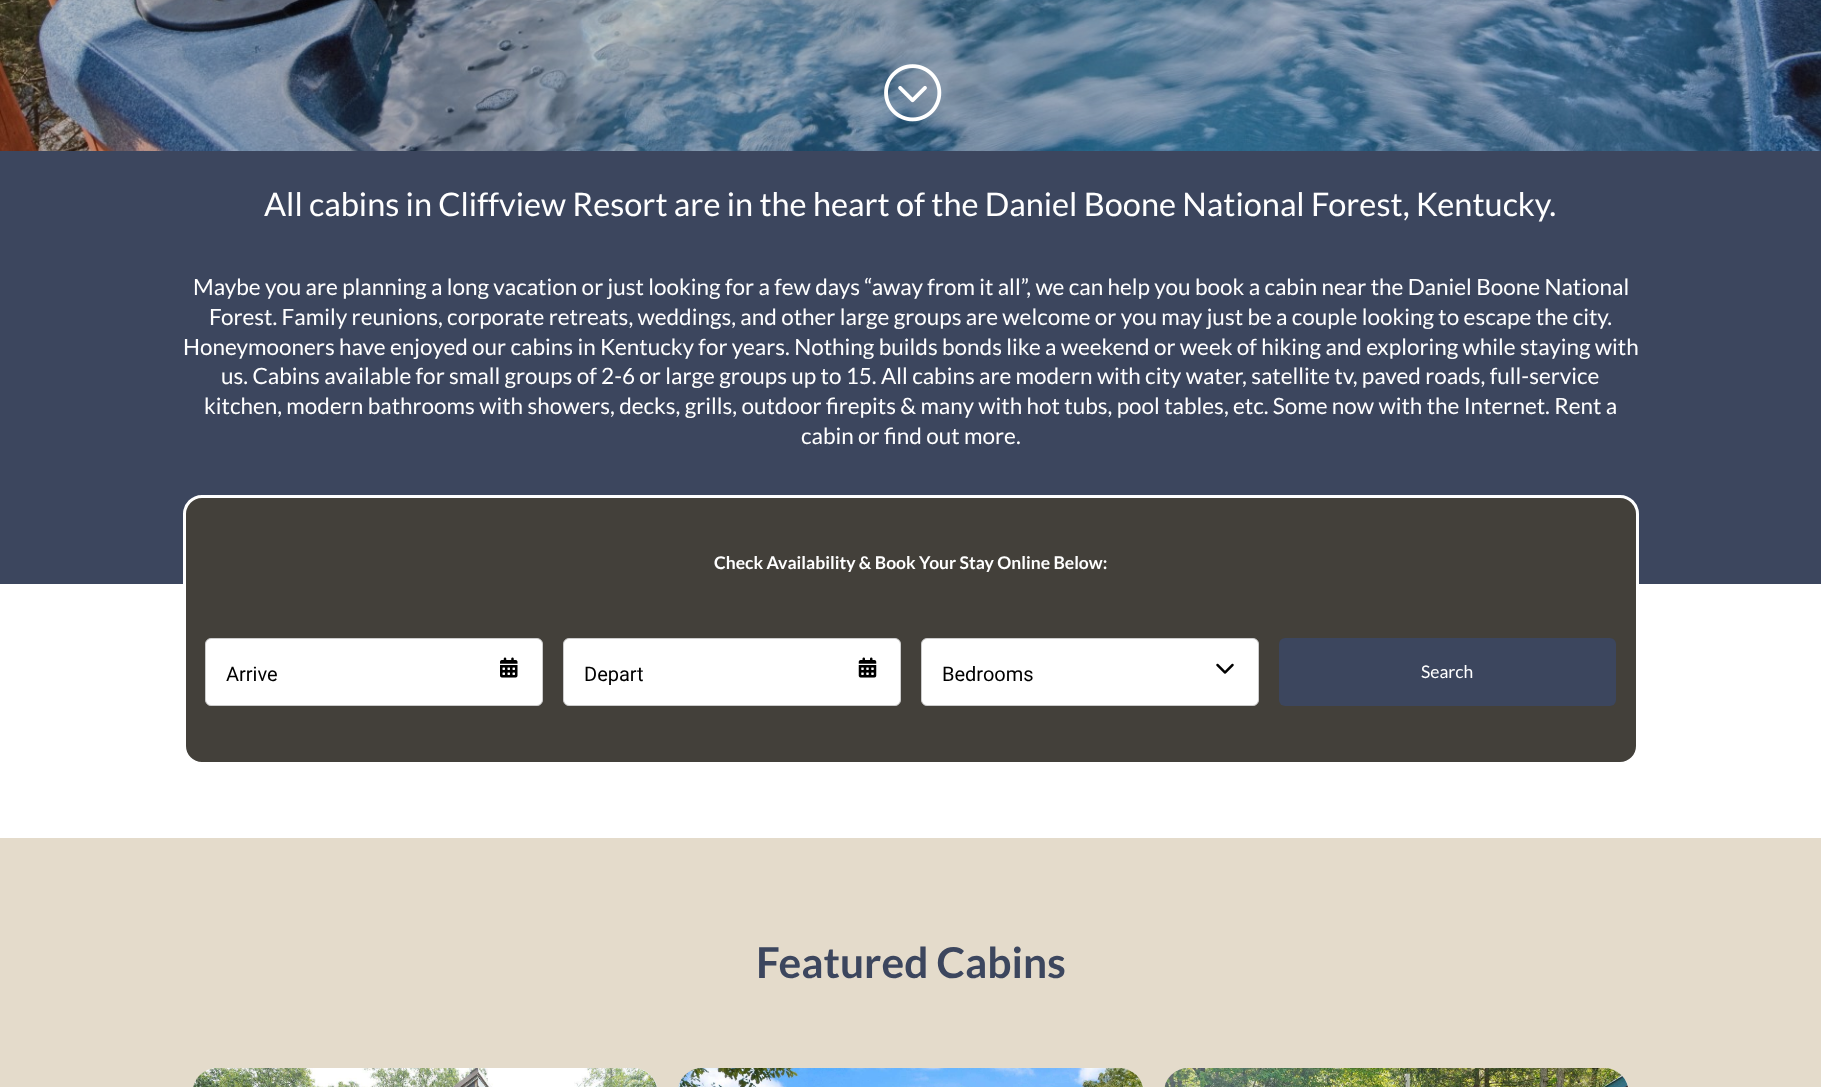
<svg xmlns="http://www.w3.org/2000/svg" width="1821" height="1087">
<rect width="100%" height="100%" fill="#fff"/>
<image x="0" y="0" width="1821" height="151" href="media/1.png"/>
<image x="884" y="64" width="58" height="58" href="media/2.png"/>
<rect y="151" width="1821" height="433" fill="#3c465e"/>
<text x="264" y="216" style="font-family:Lato;font-size:32.5px;fill:#fff">All cabins in Cliffview Resort are in the heart of the Daniel Boone National Forest, Kentucky.</text>
<text x="193" y="295" style="font-family:Lato;font-size:22.5px;fill:#fff">Maybe you are planning a long vacation or just looking for a few days “away from it all”, we can help you book a cabin near the Daniel Boone National</text>
<text x="209" y="325" style="font-family:Lato;font-size:22.5px;fill:#fff">Forest. Family reunions, corporate retreats, weddings, and other large groups are welcome or you may just be a couple looking to escape the city.</text>
<text x="183" y="355" style="font-family:Lato;font-size:22.5px;fill:#fff">Honeymooners have enjoyed our cabins in Kentucky for years. Nothing builds bonds like a weekend or week of hiking and exploring while staying with</text>
<text x="221" y="384" style="font-family:Lato;font-size:22.5px;fill:#fff">us. Cabins available for small groups of 2-6 or large groups up to 15. All cabins are modern with city water, satellite tv, paved roads, full-service</text>
<text x="204" y="414" style="font-family:Lato;font-size:22.5px;fill:#fff">kitchen, modern bathrooms with showers, decks, grills, outdoor firepits &amp; many with hot tubs, pool tables, etc. Some now with the Internet. Rent a</text>
<text x="801" y="444" style="font-family:Lato;font-size:22.5px;fill:#fff">cabin or find out more.</text>
<rect x="184.5" y="496.5" width="1453" height="267" rx="17.5" fill="#43403a" stroke="#fff" stroke-width="3"/>
<text x="714" y="569" style="font-family:Lato;font-size:17.5px;font-weight:bold;fill:#fff">Check Availability &amp; Book Your Stay Online Below:</text>
<rect x="205.5" y="638.5" width="337" height="67" rx="5.5" fill="#fff" stroke="#ccc"/>
<image x="500" y="657" width="18" height="21" href="media/3.png"/>
<text x="226" y="681" style="font-family:Roboto;font-size:20px;fill:#000">Arrive</text>
<rect x="563.5" y="638.5" width="337" height="67" rx="5.5" fill="#fff" stroke="#ccc"/>
<image x="858" y="657" width="19" height="21" href="media/4.png"/>
<text x="584" y="681" style="font-family:Roboto;font-size:20px;fill:#000">Depart</text>
<rect x="921.5" y="638.5" width="337" height="67" rx="5.5" fill="#fff" stroke="#ccc"/>
<image x="1216" y="663" width="18" height="11" href="media/5.png"/>
<text x="942" y="681" style="font-family:Roboto;font-size:20px;fill:#000">Bedrooms</text>
<rect x="1279" y="638" width="337" height="68" rx="6" fill="#3c465e"/>
<text x="1421" y="678" style="font-family:Lato;font-size:17.5px;fill:#fff">Search</text>
<rect y="838" width="1821" height="249" fill="#e4dbcb"/>
<text x="756" y="978" style="font-family:Lato;font-size:42.5px;font-weight:bold;fill:#3c465e">Featured Cabins</text>
<path d="M218 1068h415c14 0 25 11 25 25v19h-465v-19c0-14 11-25 25-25z" fill="#f1f5f9"/>
<image x="193" y="1068" width="464" height="19" href="media/6.png"/>
<path d="M703 1068h416c14 0 25 11 25 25v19h-466v-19c0-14 11-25 25-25z" fill="#f1f5f9"/>
<image x="678" y="1068" width="465" height="19" href="media/7.png"/>
<path d="M1189 1068h415c14 0 25 11 25 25v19h-465v-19c0-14 11-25 25-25z" fill="#f1f5f9"/>
<image x="1164" y="1068" width="464" height="19" href="media/8.png"/>
</svg>
